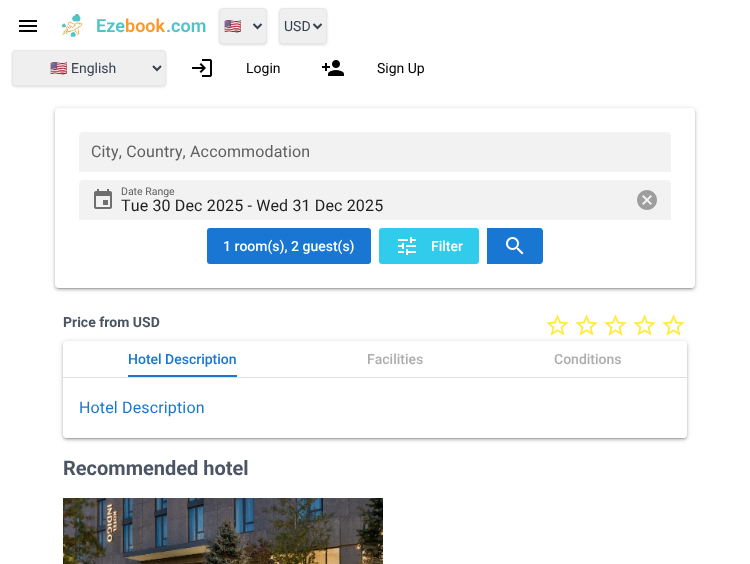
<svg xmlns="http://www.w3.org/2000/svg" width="750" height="564">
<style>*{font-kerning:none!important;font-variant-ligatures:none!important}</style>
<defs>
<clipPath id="clip1"><rect x="224" y="17" width="18" height="18"/></clipPath>
</defs>
<rect width="100%" height="100%" fill="#fff"/>
<image x="19" y="20" width="18" height="12" href="media/1.png"/>
<image x="61" y="13" width="22" height="24" href="media/2.png"/>
<text x="96" y="32" style="font-family:Roboto;font-size:18px;font-weight:600;fill:#4ec4c8">Eze</text>
<text x="125" y="32" style="font-family:Roboto;font-size:18px;font-weight:600;fill:#f99a26">book</text>
<text x="166" y="32" style="font-family:Roboto;font-size:18px;font-weight:600;fill:#4ec4c8">.com</text>
<rect x="220" y="10" width="46" height="34" rx="3" fill="#0000001a" filter="blur(1px)"/>
<rect x="219" y="9" width="48" height="36" rx="4" fill="#0000001a" filter="blur(1.5px)"/>
<rect x="219.5" y="8.5" width="47" height="35" rx="3.5" fill="#efefef" stroke="#e5e7eb"/>
<path d="M253.5 24l4 4l4-4" fill="none" stroke="#374151" stroke-width="2"/>
<g clip-path="url(#clip1)">
<text x="224" y="31" style="font-family:Noto Color Emoji;font-size:14px;fill:#374151">🇺🇸</text>
</g>
<rect x="280" y="10" width="46" height="34" rx="3" fill="#0000001a" filter="blur(1px)"/>
<rect x="279" y="9" width="48" height="36" rx="4" fill="#0000001a" filter="blur(1.5px)"/>
<rect x="279.5" y="8.5" width="47" height="35" rx="3.5" fill="#efefef" stroke="#e5e7eb"/>
<path d="M313.5 24l4 4l4-4" fill="none" stroke="#374151" stroke-width="2"/>
<text x="284" y="31" style="font-family:Roboto;font-size:14px;fill:#374151">USD</text>
<rect x="13" y="52" width="152" height="34" rx="3" fill="#0000001a" filter="blur(1px)"/>
<rect x="12" y="51" width="154" height="36" rx="4" fill="#0000001a" filter="blur(1.5px)"/>
<rect x="12.5" y="50.5" width="153" height="35" rx="3.5" fill="#efefef" stroke="#e5e7eb"/>
<path d="M153 66l4 4l4-4" fill="none" stroke="#374151" stroke-width="2"/>
<text x="50" y="73" style="font-family:Noto Color Emoji;font-size:14px;fill:#374151">🇺🇸</text>
<text x="71" y="73" style="font-family:Roboto;font-size:14px;fill:#374151">English</text>
<image x="192" y="59" width="20" height="18" href="media/3.png"/>
<text x="246" y="73" style="font-family:Roboto;font-size:14px;fill:#000">Login</text>
<image x="322" y="60" width="22" height="16" href="media/4.png"/>
<text x="377" y="73" style="font-family:Roboto;font-size:14px;fill:#000">Sign Up</text>
<rect x="57" y="113" width="636" height="176" rx="2" fill="#0000001f" filter="blur(0.5px)"/>
<rect x="55" y="110" width="640" height="180" rx="4" fill="#00000024" filter="blur(1px)"/>
<rect x="55" y="109" width="640" height="180" rx="4" fill="#00000033" filter="blur(2.5px)"/>
<rect x="55" y="108" width="640" height="180" rx="4" fill="#fff"/>
<path d="M83 132h584c2 0 4 2 4 4v36h-592v-36c0-2 2-4 4-4z" fill="#f2f2f2"/>
<text x="91" y="157" style="font-family:Roboto;font-size:16px;letter-spacing:0.15px;fill:#5f5f5f">City, Country, Accommodation</text>
<path d="M83 180h584c2 0 4 2 4 4v36h-592v-36c0-2 2-4 4-4z" fill="#f2f2f2"/>
<image x="94" y="189" width="18" height="20" href="media/5.png"/>
<text x="121" y="195" style="font-family:Roboto;font-size:10.5px;fill:#5f5f5f">Date Range</text>
<text x="121" y="211" style="font-family:Roboto;font-size:16px;letter-spacing:0.15px;fill:#1f1f1f">Tue 30 Dec 2025 - Wed 31 Dec 2025</text>
<image x="637" y="190" width="20" height="20" href="media/6.png"/>
<rect x="207" y="228" width="164" height="36" rx="3" fill="#1976d2"/>
<text x="223" y="251" style="font-family:Roboto;font-size:14px;font-weight:500;fill:#fff">1 room(s), 2 guest(s)</text>
<rect x="379" y="228" width="100" height="36" rx="3" fill="#31ccec"/>
<image x="398" y="237" width="18" height="18" href="media/7.png"/>
<text x="431" y="251" style="font-family:Roboto;font-size:14px;font-weight:500;fill:#fff">Filter</text>
<path d="M487 228h53c1.5 0 3 1.5 3 3v30c0 1.5-1.5 3-3 3h-53z" fill="#1976d2"/>
<image x="506" y="237" width="18" height="18" href="media/8.png"/>
<text x="63" y="327" style="font-family:Roboto;font-size:14px;font-weight:bold;fill:#4b5563">Price from USD</text>
<image x="546" y="314" width="23" height="22" href="media/9.png"/>
<image x="575" y="314" width="23" height="22" href="media/9.png"/>
<image x="604" y="314" width="23" height="22" href="media/9.png"/>
<image x="633" y="314" width="23" height="22" href="media/9.png"/>
<image x="662" y="314" width="23" height="22" href="media/9.png"/>
<rect x="65" y="346" width="620" height="93" rx="2" fill="#0000001f" filter="blur(0.5px)"/>
<rect x="63" y="343" width="624" height="97" rx="4" fill="#00000024" filter="blur(1px)"/>
<rect x="63" y="342" width="624" height="97" rx="4" fill="#00000033" filter="blur(2.5px)"/>
<rect x="63" y="341" width="624" height="97" rx="4" fill="#fff"/>
<text x="128" y="364" style="font-family:Roboto;font-size:14px;font-weight:500;fill:#1976d2">Hotel Description</text>
<rect x="128" y="375" width="109" height="2" fill="#1976d2"/>
<text x="367" y="364" style="font-family:Roboto;font-size:14px;font-weight:500;fill:#adadad">Facilities</text>
<path d="M489 341h194c2 0 4 2 4 4v32h-198z" fill="#fff"/>
<text x="554" y="364" style="font-family:Roboto;font-size:14px;font-weight:500;fill:#adadad">Conditions</text>
<rect x="63" y="377" width="624" height="1" fill="#e0e0e0"/>
<path d="M63 378h624v56c0 2-2 4-4 4h-616c-2 0-4-2-4-4z" fill="#fff"/>
<text x="79" y="413" style="font-family:Roboto;font-size:16px;letter-spacing:0.15px;fill:#1976d2">Hotel Description</text>
<text x="63" y="475" style="font-family:Roboto;font-size:20px;font-weight:bold;fill:#4b5563">Recommended hotel</text>
<image x="63" y="498" width="320" height="66" href="media/10.png"/>
</svg>
